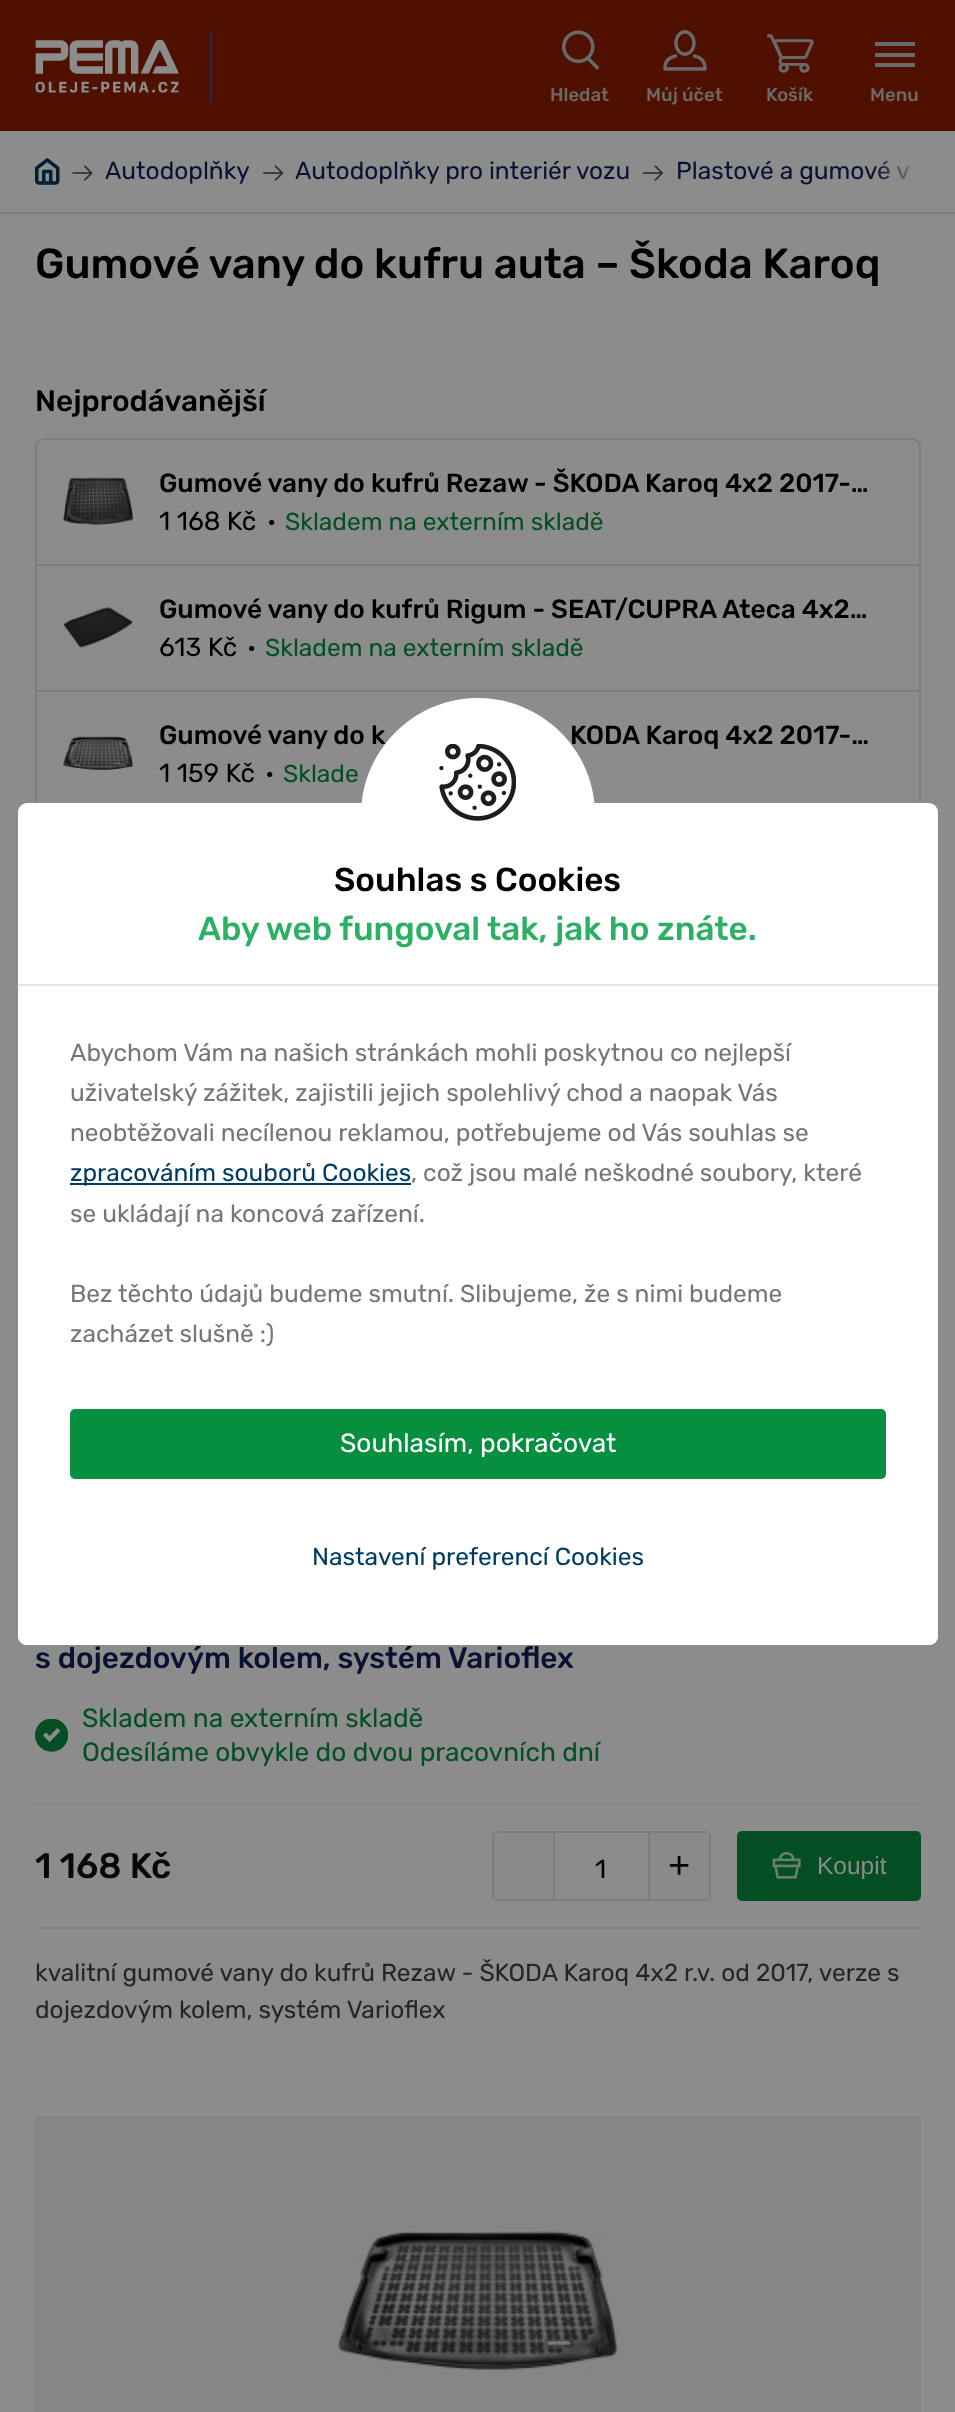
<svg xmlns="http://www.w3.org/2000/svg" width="955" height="2412">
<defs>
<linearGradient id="g1" gradientUnits="userSpaceOnUse" x1="875" y1="172" x2="921" y2="172"><stop offset="0" stop-color="#8c8c8c" stop-opacity="0"/><stop offset="0.99" stop-color="#8c8c8c"/></linearGradient>
</defs>
<rect width="100%" height="100%" fill="#8c8c8c"/>
<rect width="955" height="131" fill="#501000"/>
<image x="35" y="39" width="144" height="54" href="media/1.png"/>
<rect x="210" y="30" width="2" height="73" fill="#232a45"/>
<image x="562" y="30" width="37" height="40" href="media/2.png"/>
<text x="550" y="101" style="font-family:Rubik;font-size:18.5px;font-weight:500;fill:#696969">Hledat</text>
<image x="663" y="30" width="44" height="41" href="media/3.png"/>
<text x="646" y="101" style="font-family:Rubik;font-size:18.5px;font-weight:500;fill:#696969">Můj účet</text>
<image x="767" y="34" width="47" height="39" href="media/4.png"/>
<text x="766" y="101" style="font-family:Rubik;font-size:18.5px;font-weight:500;fill:#696969">Košík</text>
<rect x="875" y="42" width="40" height="4" fill="#696969"/>
<rect x="875" y="53" width="40" height="4" fill="#696969"/>
<rect x="875" y="63" width="40" height="4" fill="#696969"/>
<text x="870" y="101" style="font-family:Rubik;font-size:18.5px;font-weight:500;fill:#696969">Menu</text>
<rect y="212" width="955" height="2" fill="#7d7d7d"/>
<image x="35" y="158" width="25" height="27" href="media/5.png"/>
<image x="72" y="165" width="21" height="16" href="media/6.png"/>
<text x="105" y="179" style="font-family:Rubik;font-size:24.5px;fill:#091233">Autodoplňky</text>
<image x="263" y="165" width="21" height="16" href="media/7.png"/>
<text x="295" y="179" style="font-family:Rubik;font-size:24.5px;fill:#091233">Autodoplňky pro interiér vozu</text>
<image x="642" y="165" width="21" height="16" href="media/8.png"/>
<text x="676" y="179" style="font-family:Rubik;font-size:24.5px;fill:#091233">Plastové a gumové v</text>
<rect x="876" y="161" width="33" height="19" fill="url(#g1)"/>
<text x="35" y="278" style="font-family:Rubik;font-size:42px;font-weight:500;fill:#000">Gumové vany do kufru auta – Škoda Karoq</text>
<text x="35" y="411" style="font-family:Rubik;font-size:29.75px;font-weight:500;fill:#000">Nejprodávanější</text>
<rect x="36" y="439" width="884" height="377" rx="8" fill="none" stroke="#7d7d7d" stroke-width="2"/>
<image x="63" y="477" width="70" height="48" href="media/9.png"/>
<text x="159" y="492" style="font-family:Rubik;font-size:26.25px;font-weight:500;fill:#000">Gumové vany do kufrů Rezaw - ŠKODA Karoq 4x2 2017-…</text>
<text x="159" y="530" style="font-family:Rubik;font-size:26.25px;fill:#000">1 168 Kč</text>
<text x="267" y="530" style="font-family:Rubik;font-size:24.5px;fill:#000">•</text>
<text x="285" y="530" style="font-family:Rubik;font-size:24.5px;fill:#034f23">Skladem na externím skladě</text>
<rect x="37" y="564" width="882" height="2" fill="#7d7d7d"/>
<image x="63" y="607" width="70" height="41" href="media/10.png"/>
<text x="159" y="618" style="font-family:Rubik;font-size:26.25px;font-weight:500;fill:#000">Gumové vany do kufrů Rigum - SEAT/CUPRA Ateca 4x2…</text>
<text x="159" y="656" style="font-family:Rubik;font-size:26.25px;fill:#000">613 Kč</text>
<text x="247" y="656" style="font-family:Rubik;font-size:24.5px;fill:#000">•</text>
<text x="265" y="656" style="font-family:Rubik;font-size:24.5px;fill:#034f23">Skladem na externím skladě</text>
<rect x="37" y="690" width="882" height="2" fill="#7d7d7d"/>
<image x="63" y="736" width="70" height="34" href="media/11.png"/>
<text x="159" y="744" style="font-family:Rubik;font-size:26.25px;font-weight:500;fill:#000">Gumové vany do k</text>
<text x="570" y="744" style="font-family:Rubik;font-size:26.25px;font-weight:500;fill:#000">KODA Karoq 4x2 2017-…</text>
<text x="159" y="782" style="font-family:Rubik;font-size:26.25px;fill:#000">1 159 Kč</text>
<text x="265" y="782" style="font-family:Rubik;font-size:24.5px;fill:#000">•</text>
<text x="283" y="782" style="font-family:Rubik;font-size:24.5px;fill:#034f23">Sklade</text>
<text x="35" y="1668" style="font-family:Rubik;font-size:29.75px;font-weight:500;fill:#091233">s dojezdovým kolem, systém Varioflex</text>
<image x="35" y="1719" width="33" height="33" href="media/12.png"/>
<text x="82" y="1727" style="font-family:Rubik;font-size:26.25px;fill:#034f23">Skladem na externím skladě</text>
<text x="82" y="1761" style="font-family:Rubik;font-size:26.25px;fill:#034f23">Odesíláme obvykle do dvou pracovních dní</text>
<rect x="35" y="1803" width="886" height="2" fill="#878789"/>
<rect x="35" y="1927" width="886" height="2" fill="#878789"/>
<text x="35" y="1878" style="font-family:Rubik;font-size:35.5px;font-weight:500;fill:#080808">1 168 Kč</text>
<rect x="493" y="1832" width="217" height="68" rx="4" fill="none" stroke="#7d7d7d" stroke-width="2"/>
<path d="M499 1831h56v70h-56c-3 0-5-2-5-5v-60c0-3 2-5 5-5z" fill="#8a8a8a"/>
<rect x="497" y="1831" width="58" height="2" fill="#7d7d7d"/>
<rect x="553" y="1831" width="2" height="70" fill="#7d7d7d"/>
<rect x="497" y="1899" width="58" height="2" fill="#7d7d7d"/>
<text x="595" y="1878" style="font-family:Rubik;font-size:26.25px;fill:#000">1</text>
<path d="M648 1831h56c3 0 5 2 5 5v60c0 3-2 5-5 5h-56z" fill="#8a8a8a"/>
<rect x="648" y="1831" width="59" height="2" fill="#7d7d7d"/>
<rect x="648" y="1899" width="59" height="2" fill="#7d7d7d"/>
<rect x="648" y="1831" width="2" height="70" fill="#7d7d7d"/>
<text x="668" y="1878" style="font-family:Liberation Sans;font-size:38px;fill:#000">+</text>
<rect x="737" y="1831" width="184" height="70" rx="5" fill="#034f23"/>
<image x="772" y="1852" width="29" height="27" href="media/13.png"/>
<text x="817" y="1874" style="font-family:Liberation Sans;font-size:24.5px;fill:#8c8c8c">Koupit</text>
<text x="35" y="1981" style="font-family:Rubik;font-size:24.5px;fill:#252525">kvalitní gumové vany do kufrů Rezaw - ŠKODA Karoq 4x2 r.v. od 2017, verze s</text>
<text x="35" y="2018" style="font-family:Rubik;font-size:24.5px;fill:#252525">dojezdovým kolem, systém Varioflex</text>
<image x="337" y="2231" width="281" height="139" href="media/14.png"/>
<rect x="35" y="2116" width="886" height="296" fill="#0000000a"/>
<rect x="18" y="803" width="920" height="842" rx="9" fill="#fff"/>
<path d="M478 698c64.5 0 117 52.5 117 117v6h-234v-6c0-64.5 52.5-117 117-117z" fill="#fff"/>
<image x="439" y="744" width="77" height="77" href="media/15.png"/>
<text x="334" y="891" style="font-family:Rubik;font-size:33.25px;font-weight:500;fill:#000">Souhlas s Cookies</text>
<text x="198" y="940" style="font-family:Rubik;font-size:33.25px;font-weight:500;fill:#2bb064">Aby web fungoval tak, jak ho znáte.</text>
<rect x="18" y="984" width="920" height="2" fill="#e4e4e4"/>
<text x="70" y="1061" style="font-family:Rubik;font-size:24.5px;fill:#767676">Abychom Vám na našich stránkách mohli poskytnou co nejlepší</text>
<text x="70" y="1101" style="font-family:Rubik;font-size:24.5px;fill:#767676">uživatelský zážitek, zajistili jejich spolehlivý chod a naopak Vás</text>
<text x="70" y="1141" style="font-family:Rubik;font-size:24.5px;fill:#767676">neobtěžovali necílenou reklamou, potřebujeme od Vás souhlas se</text>
<rect x="70" y="1183" width="341" height="2" fill="#003b61"/>
<text x="70" y="1181" style="font-family:Rubik;font-size:24.5px;fill:#003b61">zpracováním souborů Cookies</text>
<text x="411" y="1181" style="font-family:Rubik;font-size:24.5px;fill:#767676">, což jsou malé neškodné soubory, které</text>
<text x="70" y="1222" style="font-family:Rubik;font-size:24.5px;fill:#767676">se ukládají na koncová zařízení.</text>
<text x="70" y="1302" style="font-family:Rubik;font-size:24.5px;fill:#767676">Bez těchto údajů budeme smutní. Slibujeme, že s nimi budeme</text>
<text x="70" y="1342" style="font-family:Rubik;font-size:24.5px;fill:#767676">zacházet slušně :)</text>
<path d="M18 1409h920v227c0 5-4 9-9 9h-902c-5 0-9-4-9-9z" fill="#fff"/>
<rect x="70" y="1409" width="816" height="70" rx="5" fill="#068f3f"/>
<text x="340" y="1452" style="font-family:Rubik;font-size:26.25px;fill:#fff">Souhlasím, pokračovat</text>
<text x="312" y="1565" style="font-family:Rubik;font-size:24.5px;fill:#003b61">Nastavení preferencí Cookies</text>
</svg>
